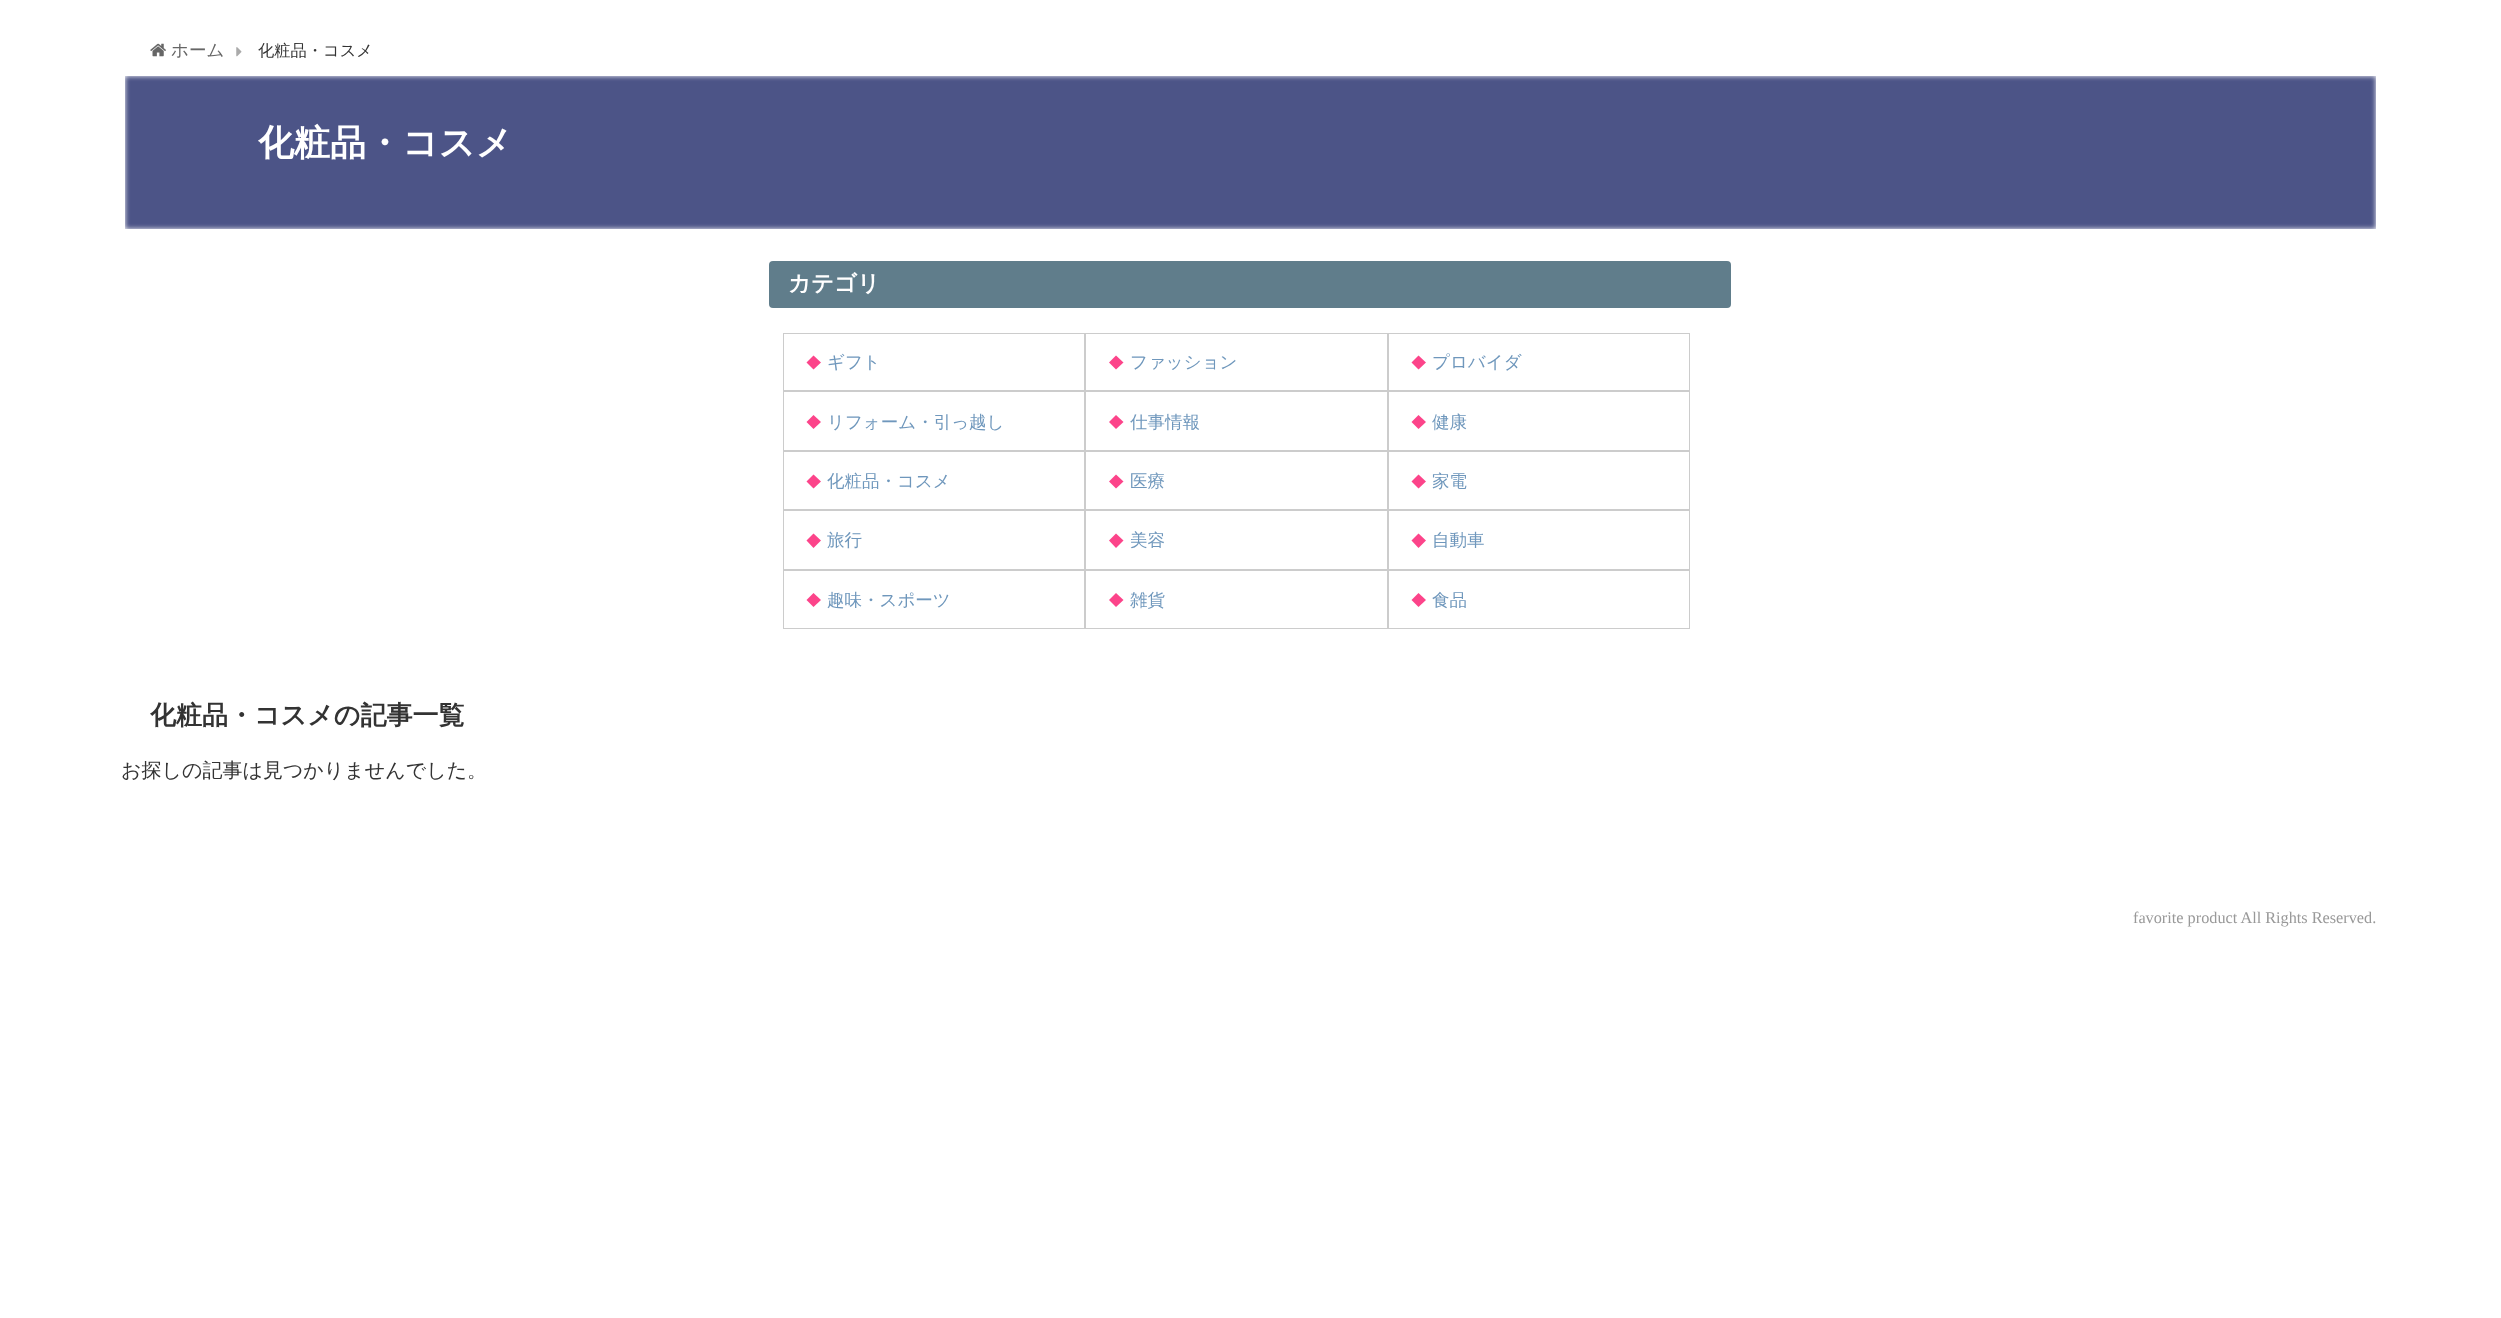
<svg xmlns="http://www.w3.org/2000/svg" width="2501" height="1318">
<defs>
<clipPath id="clip1"><rect x="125" y="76" width="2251" height="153"/></clipPath>
</defs>
<rect width="100%" height="100%" fill="#fff"/>
<image x="150" y="43" width="16" height="14" href="media/1.png"/>
<text x="171" y="56" style="font-family:WenQuanYi Zen Hei;font-size:17.5px;font-weight:500;fill:#666">ホーム</text>
<image x="236" y="47" width="6" height="10" href="media/2.png"/>
<text x="258" y="56" style="font-family:WenQuanYi Zen Hei;font-size:16.25px;font-weight:500;fill:#333">化粧品・コスメ</text>
<g clip-path="url(#clip1)">
<rect x="125" y="76" width="2251" height="153" fill="#4c5487" filter="blur(2.5px)"/>
</g>
<text x="258" y="155" style="font-family:WenQuanYi Zen Hei;font-size:36px;font-weight:bold;fill:#fff">化粧品・コスメ</text>
<rect x="769" y="261" width="962" height="47" rx="4" fill="#607d8b"/>
<text x="788" y="291" style="font-family:WenQuanYi Zen Hei;font-size:22.5px;font-weight:bold;fill:#fff">カテゴリ</text>
<rect x="783.5" y="333.5" width="301" height="57" fill="none" stroke="#ccc"/>
<path d="M813.5 355.5l7.5 7l-7.5 7l-7-7z" fill="#fc448a"/>
<text x="827" y="368" style="font-family:WenQuanYi Zen Hei;font-size:17.5px;font-weight:500;fill:#6f97bc">ギフト</text>
<rect x="1085.5" y="333.5" width="302" height="57" fill="none" stroke="#ccc"/>
<path d="M1116 355.5l7.5 7l-7.5 7l-7-7z" fill="#fc448a"/>
<text x="1130" y="368" style="font-family:WenQuanYi Zen Hei;font-size:17.5px;font-weight:500;fill:#6f97bc">ファッション</text>
<rect x="1388.5" y="333.5" width="301" height="57" fill="none" stroke="#ccc"/>
<path d="M1418.5 355.5l7.5 7l-7.5 7l-7-7z" fill="#fc448a"/>
<text x="1432" y="368" style="font-family:WenQuanYi Zen Hei;font-size:17.5px;font-weight:500;fill:#6f97bc">プロバイダ</text>
<rect x="783.5" y="391.5" width="301" height="59" fill="none" stroke="#ccc"/>
<path d="M813.5 415l7.5 7l-7.5 7l-7-7z" fill="#fc448a"/>
<text x="827" y="428" style="font-family:WenQuanYi Zen Hei;font-size:17.5px;font-weight:500;fill:#6f97bc">リフォーム・引っ越し</text>
<rect x="1085.5" y="391.5" width="302" height="59" fill="none" stroke="#ccc"/>
<path d="M1116 415l7.5 7l-7.5 7l-7-7z" fill="#fc448a"/>
<text x="1130" y="428" style="font-family:WenQuanYi Zen Hei;font-size:17.5px;font-weight:500;fill:#6f97bc">仕事情報</text>
<rect x="1388.5" y="391.5" width="301" height="59" fill="none" stroke="#ccc"/>
<path d="M1418.5 415l7.5 7l-7.5 7l-7-7z" fill="#fc448a"/>
<text x="1432" y="428" style="font-family:WenQuanYi Zen Hei;font-size:17.5px;font-weight:500;fill:#6f97bc">健康</text>
<rect x="783.5" y="451.5" width="301" height="58" fill="none" stroke="#ccc"/>
<path d="M813.5 474.5l7.5 7l-7.5 7l-7-7z" fill="#fc448a"/>
<text x="827" y="487" style="font-family:WenQuanYi Zen Hei;font-size:17.5px;font-weight:500;fill:#6f97bc">化粧品・コスメ</text>
<rect x="1085.5" y="451.5" width="302" height="58" fill="none" stroke="#ccc"/>
<path d="M1116 474.5l7.5 7l-7.5 7l-7-7z" fill="#fc448a"/>
<text x="1130" y="487" style="font-family:WenQuanYi Zen Hei;font-size:17.5px;font-weight:500;fill:#6f97bc">医療</text>
<rect x="1388.5" y="451.5" width="301" height="58" fill="none" stroke="#ccc"/>
<path d="M1418.5 474.5l7.5 7l-7.5 7l-7-7z" fill="#fc448a"/>
<text x="1432" y="487" style="font-family:WenQuanYi Zen Hei;font-size:17.5px;font-weight:500;fill:#6f97bc">家電</text>
<rect x="783.5" y="510.5" width="301" height="59" fill="none" stroke="#ccc"/>
<path d="M813.5 533.5l7.5 7l-7.5 7.5l-7-7.5z" fill="#fc448a"/>
<text x="827" y="546" style="font-family:WenQuanYi Zen Hei;font-size:17.5px;font-weight:500;fill:#6f97bc">旅行</text>
<rect x="1085.5" y="510.5" width="302" height="59" fill="none" stroke="#ccc"/>
<path d="M1116 533.5l7.5 7l-7.5 7.5l-7-7.5z" fill="#fc448a"/>
<text x="1130" y="546" style="font-family:WenQuanYi Zen Hei;font-size:17.5px;font-weight:500;fill:#6f97bc">美容</text>
<rect x="1388.5" y="510.5" width="301" height="59" fill="none" stroke="#ccc"/>
<path d="M1418.5 533.5l7.5 7l-7.5 7.5l-7-7.5z" fill="#fc448a"/>
<text x="1432" y="546" style="font-family:WenQuanYi Zen Hei;font-size:17.5px;font-weight:500;fill:#6f97bc">自動車</text>
<rect x="783.5" y="570.5" width="301" height="58" fill="none" stroke="#ccc"/>
<path d="M813.5 593l7.5 7l-7.5 7l-7-7z" fill="#fc448a"/>
<text x="827" y="606" style="font-family:WenQuanYi Zen Hei;font-size:17.5px;font-weight:500;fill:#6f97bc">趣味・スポーツ</text>
<rect x="1085.5" y="570.5" width="302" height="58" fill="none" stroke="#ccc"/>
<path d="M1116 593l7.5 7l-7.5 7l-7-7z" fill="#fc448a"/>
<text x="1130" y="606" style="font-family:WenQuanYi Zen Hei;font-size:17.5px;font-weight:500;fill:#6f97bc">雑貨</text>
<rect x="1388.5" y="570.5" width="301" height="58" fill="none" stroke="#ccc"/>
<path d="M1418.5 593l7.5 7l-7.5 7l-7-7z" fill="#fc448a"/>
<text x="1432" y="606" style="font-family:WenQuanYi Zen Hei;font-size:17.5px;font-weight:500;fill:#6f97bc">食品</text>
<text x="150" y="724" style="font-family:WenQuanYi Zen Hei;font-size:26px;font-weight:bold;fill:#333">化粧品・コスメの記事一覧</text>
<text x="121" y="777" style="font-family:WenQuanYi Zen Hei;font-size:20px;font-weight:500;fill:#333">お探しの記事は見つかりませんでした。</text>
<text x="2133" y="923" style="font-family:Liberation Serif;font-size:16.25px;fill:#999">favorite product All Rights Reserved.</text>
</svg>
